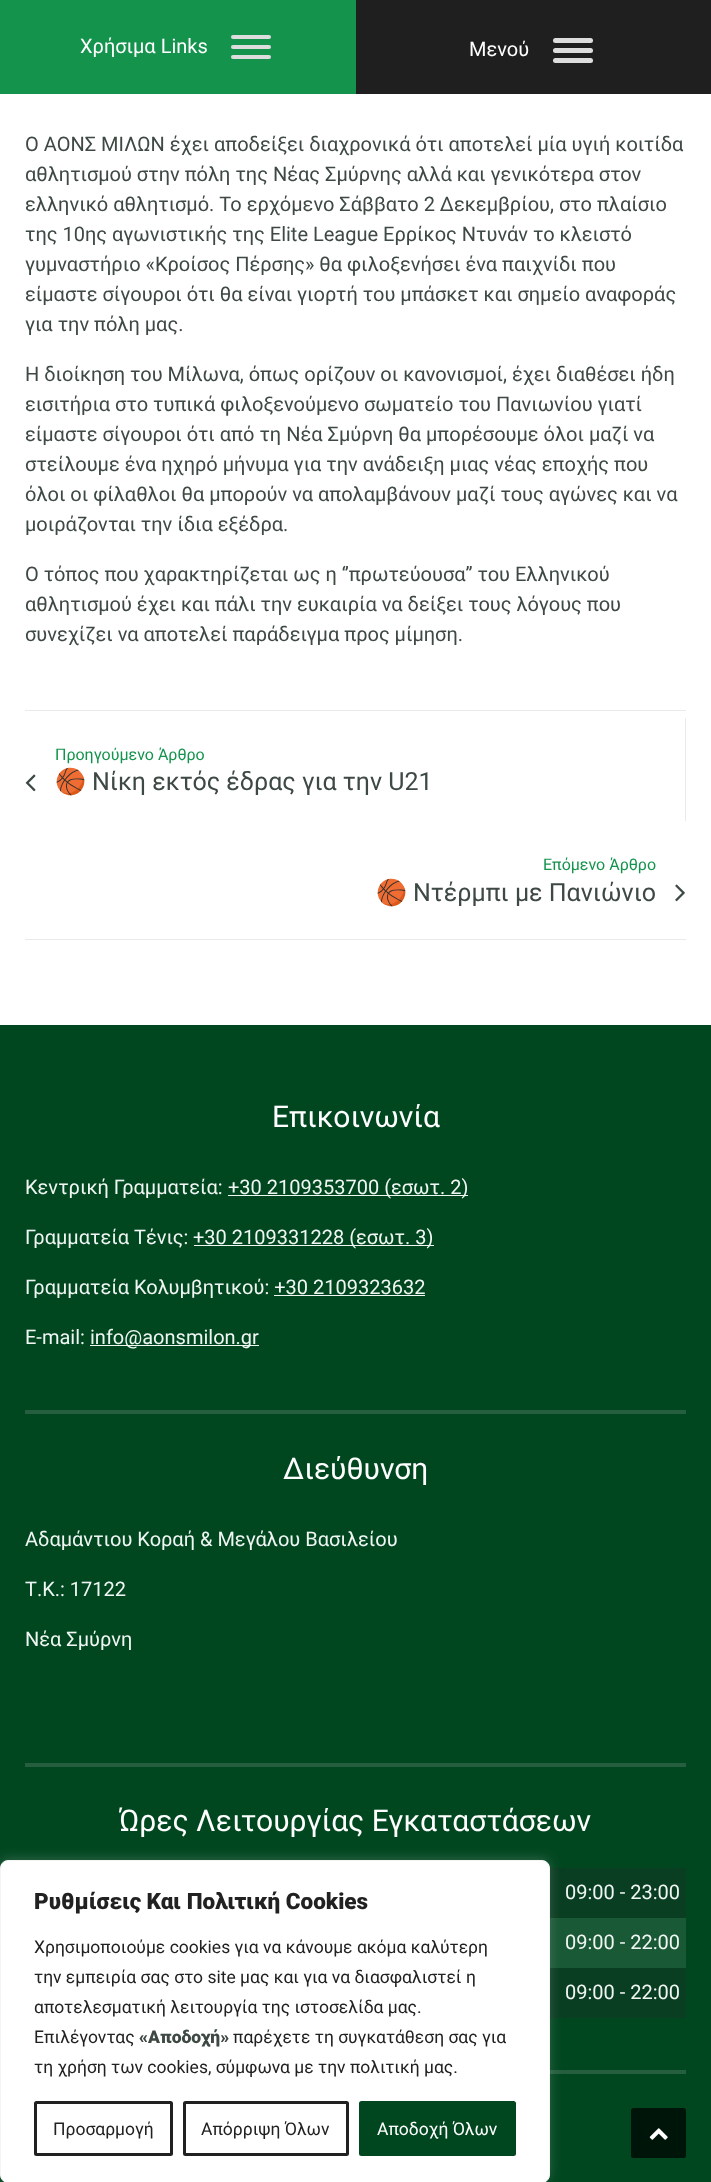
<svg xmlns="http://www.w3.org/2000/svg" width="711" height="2182">
<rect width="100%" height="100%" fill="#fff"/>
<rect width="356" height="94" fill="#14934d"/>
<text x="80" y="53" style="font-family:Roboto;font-size:20px;fill:#fff">Χρήσιμα Links</text>
<rect x="231" y="35" width="40" height="4" rx="2" fill="#ddd"/>
<rect x="231" y="45" width="40" height="4" rx="2" fill="#ddd"/>
<rect x="231" y="55" width="40" height="4" rx="2" fill="#ddd"/>
<rect x="356" width="355" height="94" fill="#1f1f1f"/>
<text x="469" y="56" style="font-family:Roboto;font-size:20px;fill:#fff">Μενού</text>
<rect x="553" y="38" width="40" height="5" rx="2.5" fill="#ddd"/>
<rect x="553" y="48" width="40" height="5" rx="2.5" fill="#ddd"/>
<rect x="553" y="58" width="40" height="5" rx="2.5" fill="#ddd"/>
<text x="25" y="151" style="font-family:Roboto;font-size:20px;fill:#3d4942">Ο ΑΟΝΣ ΜΙΛΩΝ έχει αποδείξει διαχρονικά ότι αποτελεί μία υγιή κοιτίδα</text>
<text x="25" y="181" style="font-family:Roboto;font-size:20px;fill:#3d4942">αθλητισμού στην πόλη της Νέας Σμύρνης αλλά και γενικότερα στον</text>
<text x="25" y="211" style="font-family:Roboto;font-size:20px;fill:#3d4942">ελληνικό αθλητισμό. Το ερχόμενο Σάββατο 2 Δεκεμβρίου, στο πλαίσιο</text>
<text x="25" y="241" style="font-family:Roboto;font-size:20px;fill:#3d4942">της 10ης αγωνιστικής της Elite League Ερρίκος Ντυνάν το κλειστό</text>
<text x="25" y="271" style="font-family:Roboto;font-size:20px;fill:#3d4942">γυμναστήριο «Κροίσος Πέρσης» θα φιλοξενήσει ένα παιχνίδι που</text>
<text x="25" y="301" style="font-family:Roboto;font-size:20px;fill:#3d4942">είμαστε σίγουροι ότι θα είναι γιορτή του μπάσκετ και σημείο αναφοράς</text>
<text x="25" y="331" style="font-family:Roboto;font-size:20px;fill:#3d4942">για την πόλη μας.</text>
<text x="25" y="381" style="font-family:Roboto;font-size:20px;fill:#3d4942">Η διοίκηση του Μίλωνα, όπως ορίζουν οι κανονισμοί, έχει διαθέσει ήδη</text>
<text x="25" y="411" style="font-family:Roboto;font-size:20px;fill:#3d4942">εισιτήρια στο τυπικά φιλοξενούμενο σωματείο του Πανιωνίου γιατί</text>
<text x="25" y="441" style="font-family:Roboto;font-size:20px;fill:#3d4942">είμαστε σίγουροι ότι από τη Νέα Σμύρνη θα μπορέσουμε όλοι μαζί να</text>
<text x="25" y="471" style="font-family:Roboto;font-size:20px;fill:#3d4942">στείλουμε ένα ηχηρό μήνυμα για την ανάδειξη μιας νέας εποχής που</text>
<text x="25" y="501" style="font-family:Roboto;font-size:20px;fill:#3d4942">όλοι οι φίλαθλοι θα μπορούν να απολαμβάνουν μαζί τους αγώνες και να</text>
<text x="25" y="531" style="font-family:Roboto;font-size:20px;fill:#3d4942">μοιράζονται την ίδια εξέδρα.</text>
<text x="25" y="581" style="font-family:Roboto;font-size:20px;fill:#3d4942">Ο τόπος που χαρακτηρίζεται ως η ‘’πρωτεύουσα’’ του Ελληνικού</text>
<text x="25" y="611" style="font-family:Roboto;font-size:20px;fill:#3d4942">αθλητισμού έχει και πάλι την ευκαιρία να δείξει τους λόγους που</text>
<text x="25" y="641" style="font-family:Roboto;font-size:20px;fill:#3d4942">συνεχίζει να αποτελεί παράδειγμα προς μίμηση.</text>
<rect x="25" y="710" width="661" height="1" fill="#eaeaea"/>
<rect x="25" y="939" width="661" height="1" fill="#eaeaea"/>
<rect x="685" y="718" width="1" height="103" fill="#eaeaea"/>
<text x="55" y="760" style="font-family:Roboto;font-size:16px;fill:#14934d">Προηγούμενο Άρθρο</text>
<image x="25" y="774" width="11" height="18" href="media/1.png"/>
<text x="55" y="790" style="font-family:Noto Color Emoji;font-size:25px;fill:#3d4942">🏀</text>
<text x="92" y="790" style="font-family:Roboto;font-size:25px;fill:#3d4942">Νίκη εκτός έδρας για την U21</text>
<text x="543" y="870" style="font-family:Roboto;font-size:16px;fill:#14934d">Επόμενο Άρθρο</text>
<text x="376" y="901" style="font-family:Noto Color Emoji;font-size:25px;fill:#3d4942">🏀</text>
<text x="413" y="901" style="font-family:Roboto;font-size:25px;fill:#3d4942">Ντέρμπι με Πανιώνιο</text>
<image x="675" y="884" width="10" height="18" href="media/2.png"/>
<rect y="1025" width="711" height="1157" fill="#004720"/>
<rect x="25" y="1410" width="661" height="4" fill="#255f3f"/>
<text x="272" y="1127" style="font-family:Roboto;font-size:30px;fill:#fff">Επικοινωνία</text>
<text x="25" y="1194" style="font-family:Roboto;font-size:20px;fill:#f0f6f3">Κεντρική Γραμματεία:</text>
<rect x="228" y="1195" width="240" height="1" fill="#f0f6f3"/>
<text x="228" y="1194" style="font-family:Roboto;font-size:20px;fill:#f0f6f3">+30 2109353700 (εσωτ. 2)</text>
<text x="25" y="1244" style="font-family:Roboto;font-size:20px;fill:#f0f6f3">Γραμματεία Τένις:</text>
<rect x="194" y="1245" width="240" height="1" fill="#f0f6f3"/>
<text x="193" y="1244" style="font-family:Roboto;font-size:20px;fill:#f0f6f3">+30 2109331228 (εσωτ. 3)</text>
<text x="25" y="1294" style="font-family:Roboto;font-size:20px;fill:#f0f6f3">Γραμματεία Κολυμβητικού: +30 2109323632</text>
<rect x="274" y="1295" width="151" height="1" fill="#f0f6f3"/>
<text x="25" y="1344" style="font-family:Roboto;font-size:20px;fill:#f0f6f3">Ε-mail:</text>
<rect x="90" y="1345" width="169" height="1" fill="#f0f6f3"/>
<text x="90" y="1344" style="font-family:Roboto;font-size:20px;fill:#f0f6f3">info@aonsmilon.gr</text>
<rect x="25" y="1763" width="661" height="4" fill="#255f3f"/>
<text x="283" y="1479" style="font-family:Roboto;font-size:30px;fill:#fff">Διεύθυνση</text>
<text x="25" y="1546" style="font-family:Roboto;font-size:20px;fill:#f0f6f3">Αδαμάντιου Κοραή &amp; Μεγάλου Βασιλείου</text>
<text x="25" y="1596" style="font-family:Roboto;font-size:20px;fill:#f0f6f3">Τ.Κ.: 17122</text>
<text x="25" y="1646" style="font-family:Roboto;font-size:20px;fill:#f0f6f3">Νέα Σμύρνη</text>
<rect x="550" y="2070" width="136" height="4" fill="#255f3f"/>
<text x="119" y="1831" style="font-family:Roboto;font-size:30px;fill:#fff">Ώρες Λειτουργίας Εγκαταστάσεων</text>
<rect x="550" y="1868" width="136" height="50" fill="#0a3e22"/>
<text x="565" y="1899" style="font-family:Roboto;font-size:20px;fill:#f0f6f3">09:00 - 23:00</text>
<rect x="550" y="1918" width="136" height="50" fill="#1a5936"/>
<text x="565" y="1949" style="font-family:Roboto;font-size:20px;fill:#f0f6f3">09:00 - 22:00</text>
<rect x="550" y="1968" width="136" height="50" fill="#0a3e22"/>
<text x="565" y="1999" style="font-family:Roboto;font-size:20px;fill:#f0f6f3">09:00 - 22:00</text>
<rect y="1859" width="550" height="322" rx="8" fill="#acabab4d" filter="blur(6px)"/>
<rect x="0.5" y="1860.5" width="549" height="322" rx="7.5" fill="#fff" stroke="#f4f4f4"/>
<text x="34" y="1909" style="font-family:Roboto;font-size:22.5px;font-weight:900;fill:#212121">Ρυθμίσεις Και Πολιτική Cookies</text>
<text x="34" y="1953" style="font-family:Roboto;font-size:17.5px;fill:#212121">Χρησιμοποιούμε cookies για να κάνουμε ακόμα καλύτερη</text>
<text x="34" y="1983" style="font-family:Roboto;font-size:17.5px;fill:#212121">την εμπειρία σας στο site μας και για να διασφαλιστεί η</text>
<text x="34" y="2013" style="font-family:Roboto;font-size:17.5px;fill:#212121">αποτελεσματική λειτουργία της ιστοσελίδα μας.</text>
<text x="34" y="2043" style="font-family:Roboto;font-size:17.5px;fill:#212121">Επιλέγοντας</text>
<text x="139" y="2043" style="font-family:Roboto;font-size:17.5px;font-weight:900;fill:#3d4942">«Αποδοχή»</text>
<text x="233" y="2043" style="font-family:Roboto;font-size:17.5px;fill:#212121">παρέχετε τη συγκατάθεση σας για</text>
<text x="34" y="2073" style="font-family:Roboto;font-size:17.5px;fill:#212121">τη χρήση των cookies, σύμφωνα με την πολιτική μας.</text>
<rect x="35.5" y="2102.5" width="136" height="52" rx="1" fill="none" stroke="#212121" stroke-width="3"/>
<text x="53" y="2135" style="font-family:Roboto;font-size:17.5px;fill:#212121">Προσαρμογή</text>
<rect x="184.5" y="2102.5" width="163" height="52" rx="1" fill="none" stroke="#212121" stroke-width="3"/>
<text x="201" y="2135" style="font-family:Roboto;font-size:17.5px;fill:#212121">Απόρριψη Όλων</text>
<rect x="360.5" y="2102.5" width="154" height="52" rx="1" fill="#004720" stroke="#004720" stroke-width="3"/>
<text x="377" y="2135" style="font-family:Roboto;font-size:17.5px;fill:#fff">Αποδοχή Όλων</text>
<rect x="631" y="2108" width="55" height="50" rx="2.5" fill="#00150a"/>
<image x="649" y="2128" width="19" height="12" href="media/3.png"/>
</svg>
